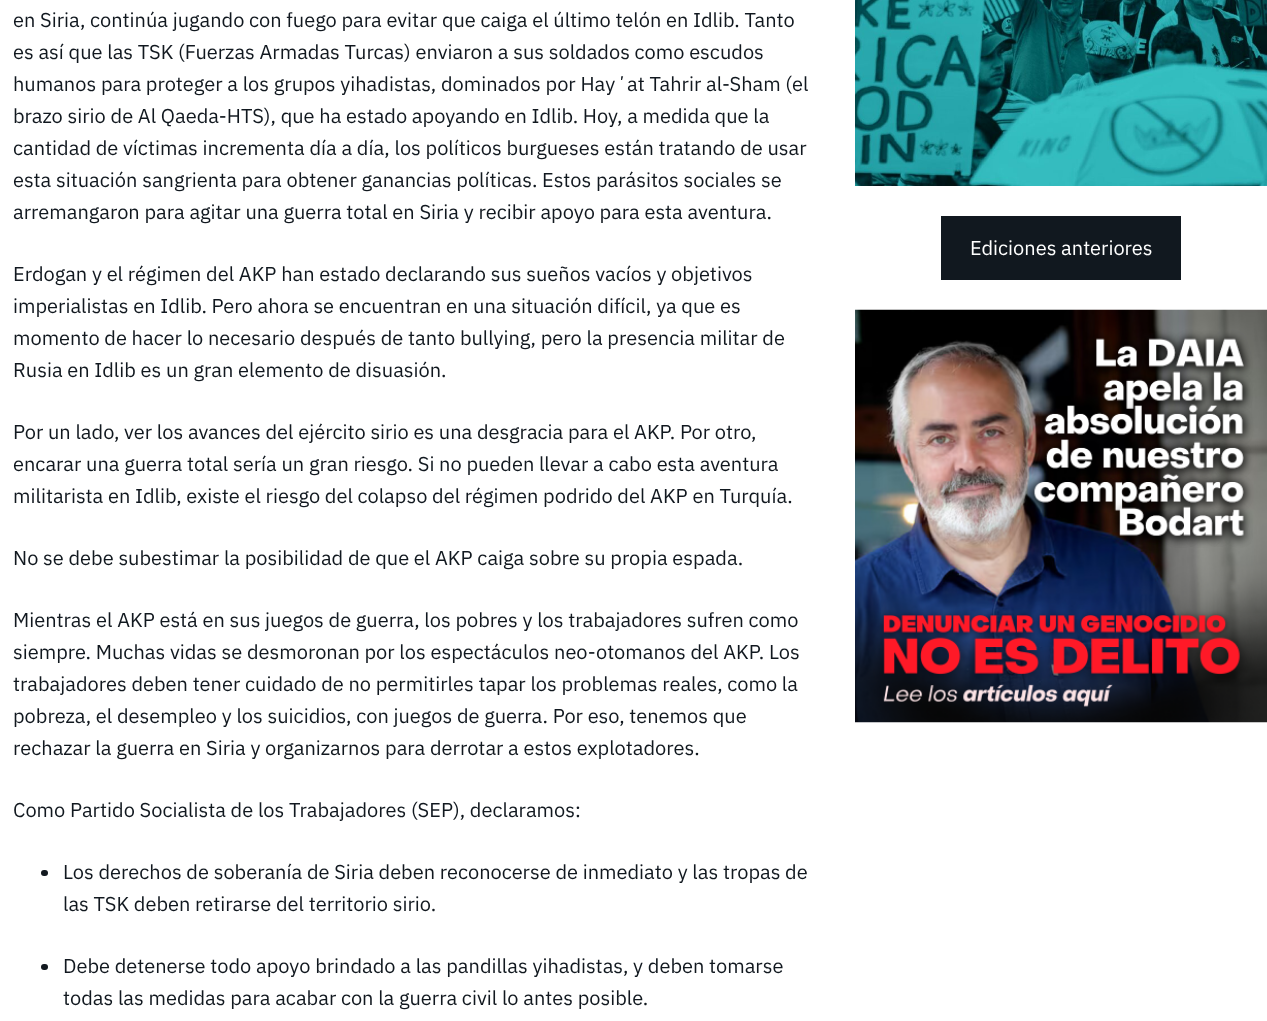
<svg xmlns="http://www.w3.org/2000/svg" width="1267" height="1021">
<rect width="100%" height="100%" fill="#fff"/>
<text x="13" y="27" style="font-family:IBM Plex Sans;font-size:20px;fill:#11181f">en Siria, continúa jugando con fuego para evitar que caiga el último telón en Idlib. Tanto</text>
<text x="13" y="59" style="font-family:IBM Plex Sans;font-size:20px;fill:#11181f">es así que las TSK (Fuerzas Armadas Turcas) enviaron a sus soldados como escudos</text>
<text x="13" y="91" style="font-family:IBM Plex Sans;font-size:20px;fill:#11181f">humanos para proteger a los grupos yihadistas, dominados por Hayʼat Tahrir al-Sham (el</text>
<text x="13" y="123" style="font-family:IBM Plex Sans;font-size:20px;fill:#11181f">brazo sirio de Al Qaeda-HTS), que ha estado apoyando en Idlib. Hoy, a medida que la</text>
<text x="13" y="155" style="font-family:IBM Plex Sans;font-size:20px;fill:#11181f">cantidad de víctimas incrementa día a día, los políticos burgueses están tratando de usar</text>
<text x="13" y="187" style="font-family:IBM Plex Sans;font-size:20px;fill:#11181f">esta situación sangrienta para obtener ganancias políticas. Estos parásitos sociales se</text>
<text x="13" y="219" style="font-family:IBM Plex Sans;font-size:20px;fill:#11181f">arremangaron para agitar una guerra total en Siria y recibir apoyo para esta aventura.</text>
<text x="13" y="281" style="font-family:IBM Plex Sans;font-size:20px;fill:#11181f">Erdogan y el régimen del AKP han estado declarando sus sueños vacíos y objetivos</text>
<text x="13" y="313" style="font-family:IBM Plex Sans;font-size:20px;fill:#11181f">imperialistas en Idlib. Pero ahora se encuentran en una situación difícil, ya que es</text>
<text x="13" y="345" style="font-family:IBM Plex Sans;font-size:20px;fill:#11181f">momento de hacer lo necesario después de tanto bullying, pero la presencia militar de</text>
<text x="13" y="377" style="font-family:IBM Plex Sans;font-size:20px;fill:#11181f">Rusia en Idlib es un gran elemento de disuasión.</text>
<text x="13" y="439" style="font-family:IBM Plex Sans;font-size:20px;fill:#11181f">Por un lado, ver los avances del ejército sirio es una desgracia para el AKP. Por otro,</text>
<text x="13" y="471" style="font-family:IBM Plex Sans;font-size:20px;fill:#11181f">encarar una guerra total sería un gran riesgo. Si no pueden llevar a cabo esta aventura</text>
<text x="13" y="503" style="font-family:IBM Plex Sans;font-size:20px;fill:#11181f">militarista en Idlib, existe el riesgo del colapso del régimen podrido del AKP en Turquía.</text>
<text x="13" y="565" style="font-family:IBM Plex Sans;font-size:20px;fill:#11181f">No se debe subestimar la posibilidad de que el AKP caiga sobre su propia espada.</text>
<text x="13" y="627" style="font-family:IBM Plex Sans;font-size:20px;fill:#11181f">Mientras el AKP está en sus juegos de guerra, los pobres y los trabajadores sufren como</text>
<text x="13" y="659" style="font-family:IBM Plex Sans;font-size:20px;fill:#11181f">siempre. Muchas vidas se desmoronan por los espectáculos neo-otomanos del AKP. Los</text>
<text x="13" y="691" style="font-family:IBM Plex Sans;font-size:20px;fill:#11181f">trabajadores deben tener cuidado de no permitirles tapar los problemas reales, como la</text>
<text x="13" y="723" style="font-family:IBM Plex Sans;font-size:20px;fill:#11181f">pobreza, el desempleo y los suicidios, con juegos de guerra. Por eso, tenemos que</text>
<text x="13" y="755" style="font-family:IBM Plex Sans;font-size:20px;fill:#11181f">rechazar la guerra en Siria y organizarnos para derrotar a estos explotadores.</text>
<text x="13" y="817" style="font-family:IBM Plex Sans;font-size:20px;fill:#11181f">Como Partido Socialista de los Trabajadores (SEP), declaramos:</text>
<rect x="41" y="870" width="7" height="6" rx="3" fill="#11181f"/>
<text x="63" y="879" style="font-family:IBM Plex Sans;font-size:20px;fill:#11181f">Los derechos de soberanía de Siria deben reconocerse de inmediato y las tropas de</text>
<text x="63" y="911" style="font-family:IBM Plex Sans;font-size:20px;fill:#11181f">las TSK deben retirarse del territorio sirio.</text>
<rect x="41" y="964" width="7" height="6" rx="3" fill="#11181f"/>
<text x="63" y="973" style="font-family:IBM Plex Sans;font-size:20px;fill:#11181f">Debe detenerse todo apoyo brindado a las pandillas yihadistas, y deben tomarse</text>
<text x="63" y="1005" style="font-family:IBM Plex Sans;font-size:20px;fill:#11181f">todas las medidas para acabar con la guerra civil lo antes posible.</text>
<image x="855" y="0" width="412" height="186" href="media/1.png"/>
<rect x="941" y="216" width="240" height="64" fill="#11181f"/>
<text x="970" y="255" style="font-family:IBM Plex Sans;font-size:20px;fill:#fff">Ediciones anteriores</text>
<image x="855" y="309" width="412" height="414" href="media/2.png"/>
</svg>
